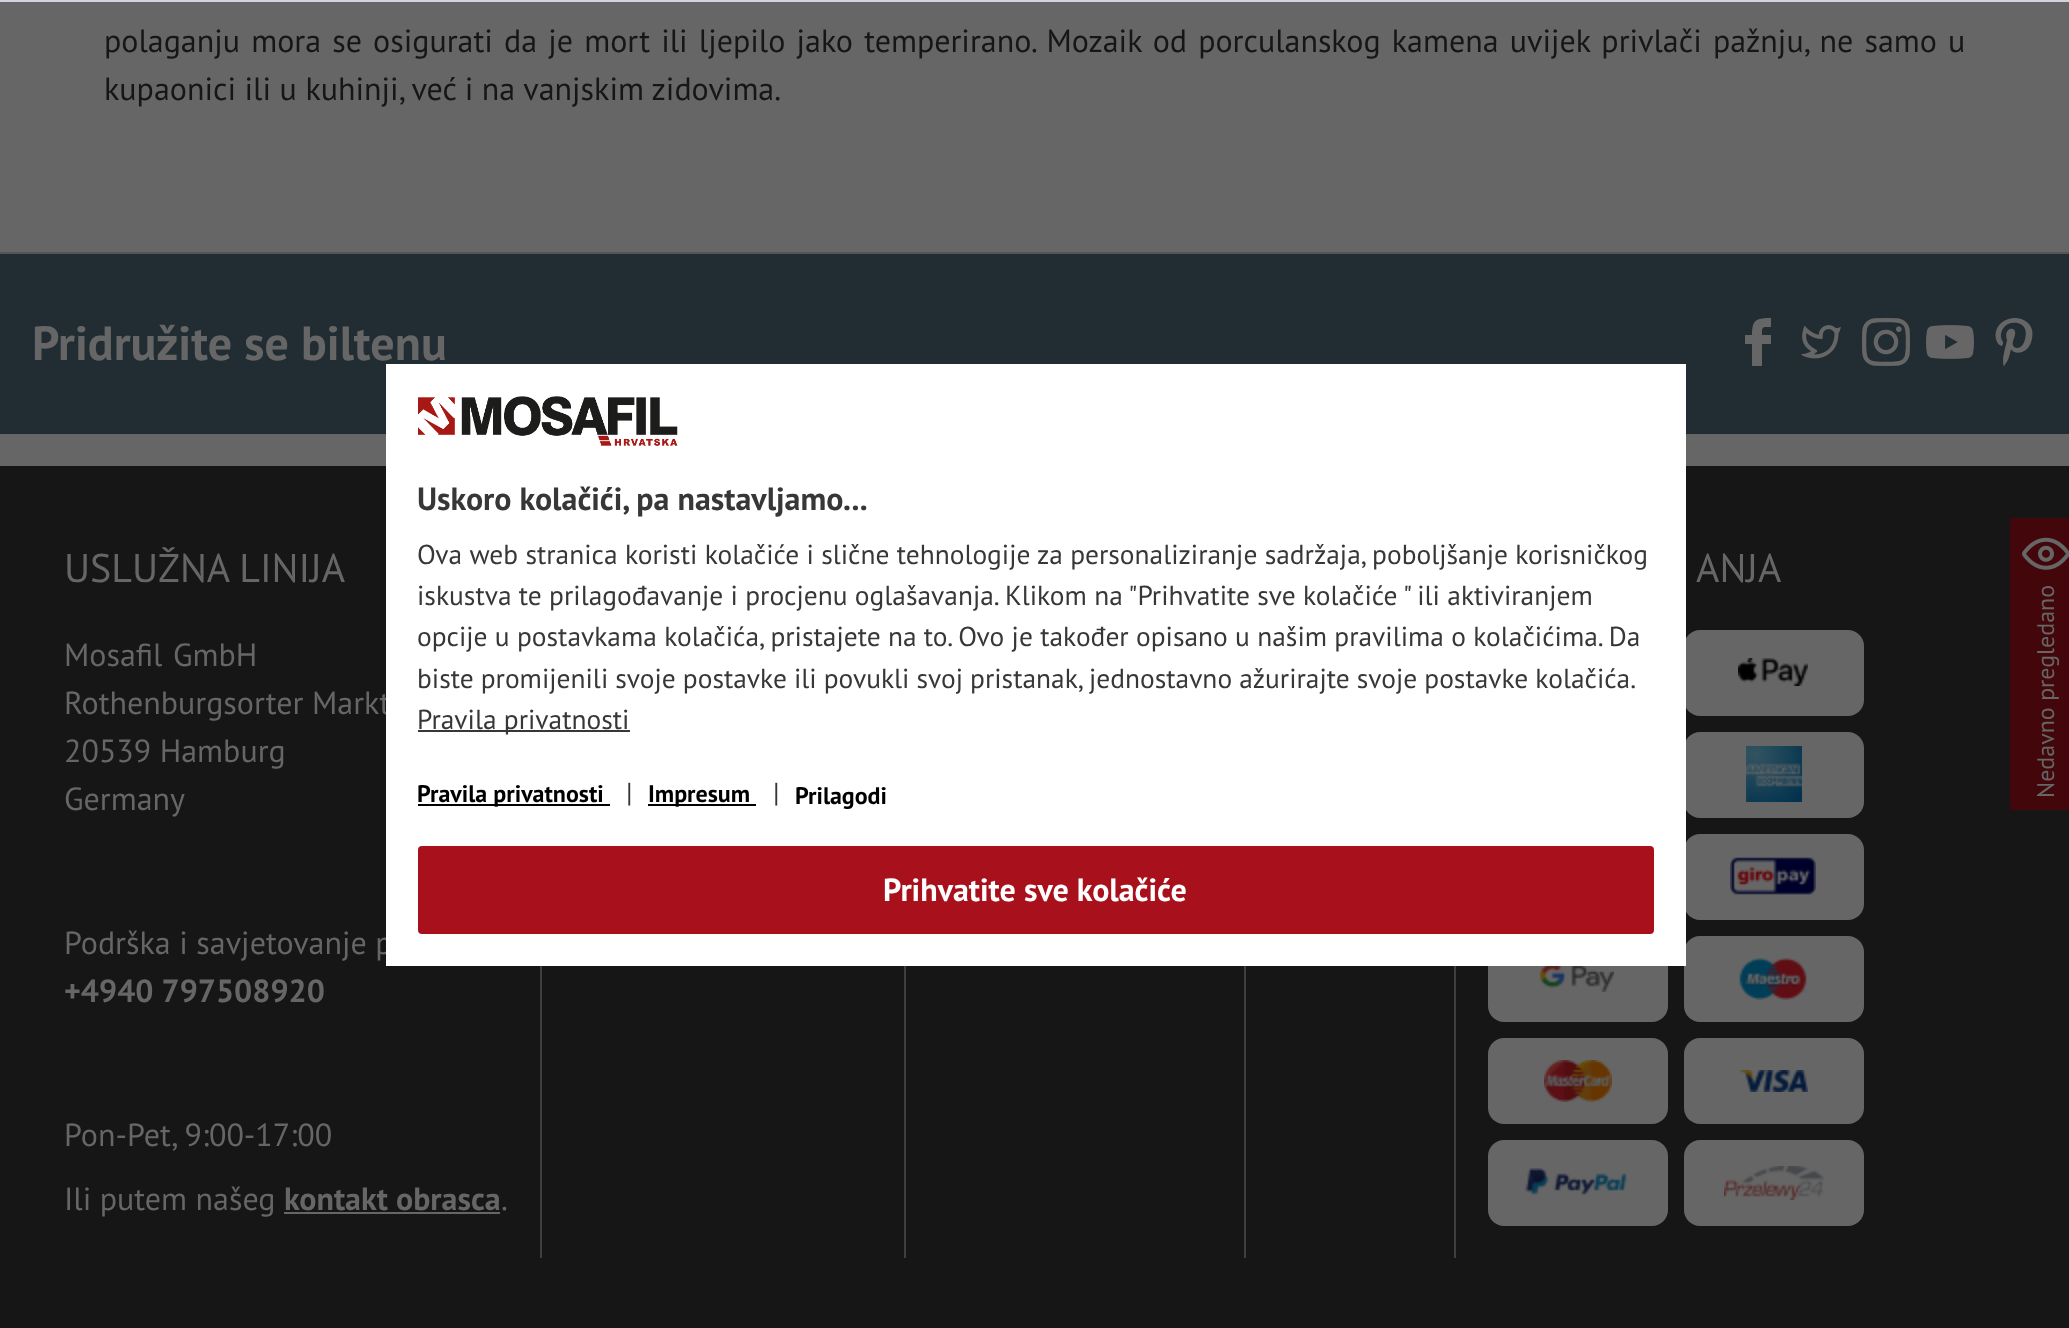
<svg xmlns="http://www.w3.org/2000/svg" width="2069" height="1328">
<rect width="100%" height="100%" fill="#666"/>
<text x="104" y="52" word-spacing="2.6" style="font-family:PT Sans;font-size:32px;fill:#161616">polaganju mora se osigurati da je mort ili ljepilo jako temperirano. Mozaik od porculanskog kamena uvijek privlači pažnju, ne samo u</text>
<text x="104" y="100" style="font-family:PT Sans;font-size:32px;fill:#161616">kupaonici ili u kuhinji, već i na vanjskim zidovima.</text>
<rect y="466" width="2069" height="862" fill="#161616"/>
<rect y="252" width="2069" height="2" fill="#545558"/>
<rect y="254" width="2069" height="180" fill="#212c33"/>
<text x="32" y="360" style="font-family:PT Sans;font-size:48px;font-weight:bold;fill:#666">Pridružite se biltenu</text>
<path d="M1745 344v-9h7c0-16 5-17 19-17v9c-9 0-9-1-9 8h9v9h-9v22h-10v-22z" fill="#666"/>
<image x="1801" y="325" width="40" height="34" href="media/1.png"/>
<image x="1862" y="318" width="48" height="48" href="media/2.png"/>
<image x="1926" y="325" width="48" height="34" href="media/3.png"/>
<image x="1995" y="318" width="38" height="48" href="media/4.png"/>
<text x="64" y="582" style="font-family:PT Sans;font-size:40px;fill:#666">USLUŽNA LINIJA</text>
<text x="64" y="666" word-spacing="2" style="font-family:PT Sans;font-size:32px;fill:#666">Mosafil GmbH</text>
<text x="64" y="714" style="font-family:PT Sans;font-size:32px;fill:#666">Rothenburgsorter Markt</text>
<text x="64" y="762" style="font-family:PT Sans;font-size:32px;fill:#666">20539 Hamburg</text>
<text x="64" y="810" style="font-family:PT Sans;font-size:32px;fill:#666">Germany</text>
<text x="64" y="954" style="font-family:PT Sans;font-size:32px;fill:#666">Podrška i savjetovanje p</text>
<text x="64" y="1002" style="font-family:PT Sans;font-size:32px;font-weight:bold;fill:#666">+4940 797508920</text>
<text x="64" y="1146" style="font-family:PT Sans;font-size:32px;fill:#666">Pon-Pet, 9:00-17:00</text>
<text x="64" y="1210" style="font-family:PT Sans;font-size:32px;fill:#666">Ili putem našeg</text>
<text x="284" y="1210" style="font-family:PT Sans;font-size:32px;font-weight:bold;fill:#666">kontakt obrasca</text>
<rect x="284" y="1212" width="216" height="2" fill="#666"/>
<text x="501" y="1210" style="font-family:PT Sans;font-size:32px;fill:#666">.</text>
<rect x="1454" y="966" width="2" height="292" fill="#3e3e3e"/>
<text x="1696" y="582" style="font-family:PT Sans;font-size:40px;fill:#666">ANJA</text>
<rect x="1684" y="630" width="180" height="86" rx="16" fill="#666"/>
<image x="1738" y="658" width="70" height="28" href="media/5.png"/>
<rect x="1684" y="732" width="180" height="86" rx="16" fill="#666"/>
<image x="1746" y="746" width="56" height="56" href="media/6.png"/>
<rect x="1684" y="834" width="180" height="86" rx="16" fill="#666"/>
<image x="1730" y="857" width="86" height="38" href="media/7.png"/>
<rect x="1488" y="936" width="180" height="86" rx="16" fill="#666"/>
<image x="1540" y="966" width="74" height="26" href="media/8.png"/>
<rect x="1684" y="936" width="180" height="86" rx="16" fill="#666"/>
<image x="1739" y="958" width="68" height="42" href="media/9.png"/>
<rect x="1488" y="1038" width="180" height="86" rx="16" fill="#666"/>
<image x="1544" y="1060" width="68" height="42" href="media/10.png"/>
<rect x="1684" y="1038" width="180" height="86" rx="16" fill="#666"/>
<image x="1740" y="1070" width="68" height="22" href="media/11.png"/>
<rect x="1488" y="1140" width="180" height="86" rx="16" fill="#666"/>
<image x="1525" y="1168" width="102" height="27" href="media/12.png"/>
<rect x="1684" y="1140" width="180" height="86" rx="16" fill="#666"/>
<image x="1724" y="1166" width="100" height="34" href="media/13.png"/>
<rect x="540" y="966" width="2" height="292" fill="#3e3e3e"/>
<rect x="904" y="966" width="2" height="292" fill="#3e3e3e"/>
<rect x="1244" y="966" width="2" height="292" fill="#3e3e3e"/>
<rect width="2069" height="2" fill="#d1d5db"/>
<rect x="386" y="364" width="1300" height="602" fill="#fff"/>
<image x="418" y="396" width="260" height="50" href="media/14.png"/>
<text x="417" y="510" style="font-family:PT Sans;font-size:32px;font-weight:bold;fill:#373737">Uskoro kolačići, pa nastavljamo...</text>
<text x="417" y="564" style="font-family:PT Sans;font-size:27.45px;fill:#373737">Ova web stranica koristi kolačiće i slične tehnologije za personaliziranje sadržaja, poboljšanje korisničkog</text>
<text x="417" y="605" style="font-family:PT Sans;font-size:27.45px;fill:#373737">iskustva te prilagođavanje i procjenu oglašavanja. Klikom na "Prihvatite sve kolačiće " ili aktiviranjem</text>
<text x="417" y="646" style="font-family:PT Sans;font-size:27.45px;fill:#373737">opcije u postavkama kolačića, pristajete na to. Ovo je također opisano u našim pravilima o kolačićima. Da</text>
<text x="417" y="688" word-spacing="-0.25" style="font-family:PT Sans;font-size:27.45px;fill:#373737">biste promijenili svoje postavke ili povukli svoj pristanak, jednostavno ažurirajte svoje postavke kolačića.</text>
<rect x="418" y="730" width="212" height="2" fill="#373737"/>
<text x="417" y="729" style="font-family:PT Sans;font-size:27.45px;fill:#373737">Pravila privatnosti</text>
<rect x="418" y="804" width="192" height="2" fill="#000"/>
<text x="417" y="802" style="font-family:PT Sans;font-size:24px;font-weight:bold;fill:#000">Pravila privatnosti</text>
<text x="626" y="802" style="font-family:PT Sans;font-size:27.45px;fill:#373737">|</text>
<rect x="648" y="804" width="108" height="2" fill="#000"/>
<text x="648" y="802" style="font-family:PT Sans;font-size:24px;font-weight:bold;fill:#000">Impresum</text>
<text x="773" y="802" style="font-family:PT Sans;font-size:27.45px;fill:#373737">|</text>
<text x="795" y="804" style="font-family:PT Sans;font-size:24px;font-weight:bold;fill:#000">Prilagodi</text>
<rect x="419" y="847" width="1234" height="86" rx="3" fill="#a8111c" stroke="#a8111c" stroke-width="2"/>
<text x="883" y="901" style="font-family:PT Sans;font-size:32px;font-weight:bold;fill:#fff">Prihvatite sve kolačiće</text>
<path d="M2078 810h-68v-292h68c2 0 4 2 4 4v284c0 2-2 4-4 4z" fill="#43070b"/>
<image x="2022" y="537" width="47" height="33" href="media/15.png"/>
<text x="2054" y="798" transform="rotate(-90 2054 798)" style="font-family:PT Sans;font-size:24px;fill:#666">Nedavno pregledano</text>
</svg>
